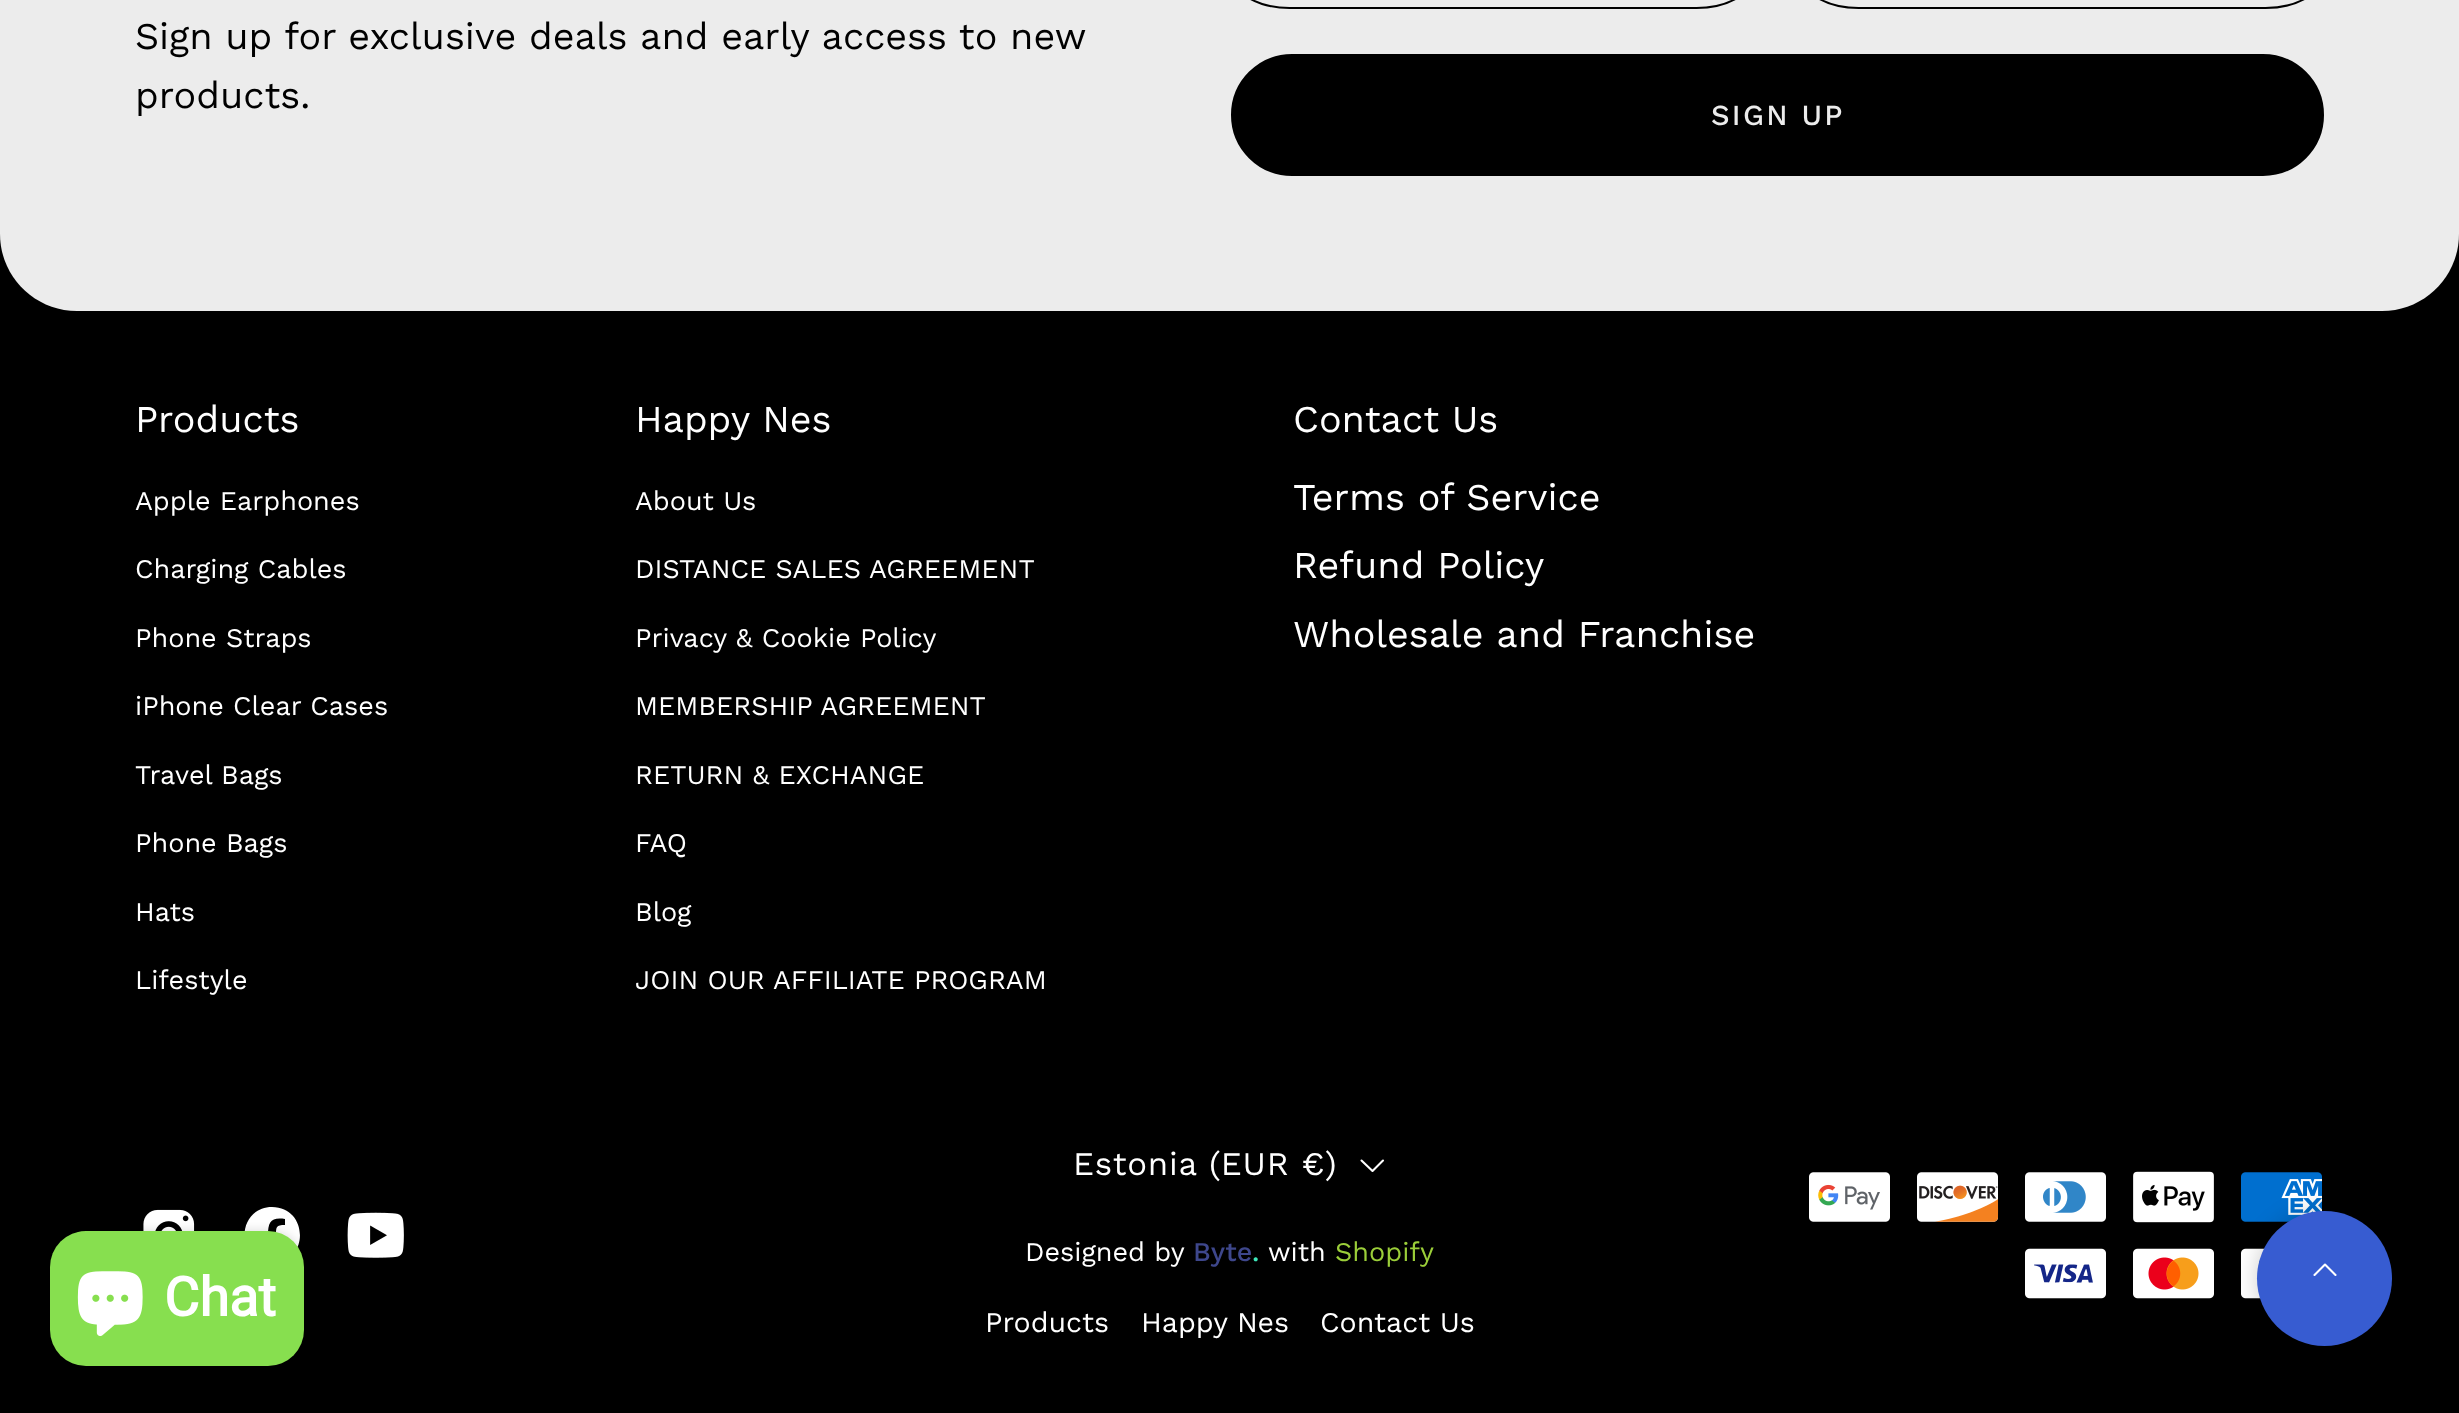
<svg xmlns="http://www.w3.org/2000/svg" width="2459" height="1413">
<rect width="100%" height="100%" fill="#000"/>
<path d="M0-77h2459v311c0 42.5-34.5 77-77 77h-2305c-42.5 0-77-34.5-77-77z" fill="#ececec"/>
<text x="135" y="49" word-spacing="-0.25" style="font-family:Work Sans;font-size:37.8px;fill:#000">Sign up for exclusive deals and early access to new</text>
<text x="135" y="108" style="font-family:Work Sans;font-size:37.8px;fill:#000">products.</text>
<rect x="1232" y="-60" width="522" height="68" rx="57.5" fill="none" stroke="#000" stroke-width="2"/>
<rect x="1801" y="-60" width="522" height="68" rx="57.5" fill="none" stroke="#000" stroke-width="2"/>
<rect x="1232" y="55" width="1091" height="120" rx="60" fill="#000" stroke="#000" stroke-width="2"/>
<text x="1711" y="125" style="font-family:Work Sans;font-size:29px;font-weight:500;letter-spacing:2.25px;fill:#ececec">SIGN UP</text>
<text x="135" y="432" style="font-family:Work Sans;font-size:37.8px;fill:#fff">Products</text>
<text x="135" y="510" style="font-family:Work Sans;font-size:27px;fill:#fff">Apple Earphones</text>
<text x="135" y="578" style="font-family:Work Sans;font-size:27px;fill:#fff">Charging Cables</text>
<text x="135" y="647" style="font-family:Work Sans;font-size:27px;fill:#fff">Phone Straps</text>
<text x="135" y="715" style="font-family:Work Sans;font-size:27px;fill:#fff">iPhone Clear Cases</text>
<text x="135" y="784" style="font-family:Work Sans;font-size:27px;fill:#fff">Travel Bags</text>
<text x="135" y="852" style="font-family:Work Sans;font-size:27px;fill:#fff">Phone Bags</text>
<text x="135" y="921" style="font-family:Work Sans;font-size:27px;fill:#fff">Hats</text>
<text x="135" y="989" style="font-family:Work Sans;font-size:27px;fill:#fff">Lifestyle</text>
<text x="635" y="432" style="font-family:Work Sans;font-size:37.8px;fill:#fff">Happy Nes</text>
<text x="635" y="510" style="font-family:Work Sans;font-size:27px;fill:#fff">About Us</text>
<text x="635" y="578" style="font-family:Work Sans;font-size:27px;fill:#fff">DISTANCE SALES AGREEMENT</text>
<text x="635" y="647" style="font-family:Work Sans;font-size:27px;fill:#fff">Privacy &amp; Cookie Policy</text>
<text x="635" y="715" style="font-family:Work Sans;font-size:27px;fill:#fff">MEMBERSHIP AGREEMENT</text>
<text x="635" y="784" style="font-family:Work Sans;font-size:27px;fill:#fff">RETURN &amp; EXCHANGE</text>
<text x="635" y="852" style="font-family:Work Sans;font-size:27px;fill:#fff">FAQ</text>
<text x="635" y="921" style="font-family:Work Sans;font-size:27px;fill:#fff">Blog</text>
<text x="635" y="989" style="font-family:Work Sans;font-size:27px;fill:#fff">JOIN OUR AFFILIATE PROGRAM</text>
<text x="1293" y="432" style="font-family:Work Sans;font-size:37.8px;fill:#fff">Contact Us</text>
<text x="1293" y="510" style="font-family:Work Sans;font-size:37.8px;fill:#fff">Terms of Service</text>
<text x="1293" y="578" style="font-family:Work Sans;font-size:37.8px;fill:#fff">Refund Policy</text>
<text x="1293" y="647" style="font-family:Work Sans;font-size:37.8px;fill:#fff">Wholesale and Franchise</text>
<image x="143" y="1209" width="52" height="22" href="media/1.png"/>
<path d="M272 1207c-34 0-38 51-4 56v-20h-7v-8h7c0-13 3-18 17-16v6c-9 0-9 2-9 10h8l-1 8h-7v20c34-5 31-56-4-56z" fill="#fff"/>
<image x="347" y="1212" width="57" height="46" href="media/2.png"/>
<text x="1073" y="1175" style="font-family:Work Sans;font-size:33px;letter-spacing:0.7px;fill:#fff">Estonia (EUR €)</text>
<path d="M1383 1160.5l-10.5 10.5l-11-10.5" fill="none" stroke="#fff" stroke-width="2.1" stroke-linecap="round" stroke-linejoin="round"/>
<text x="1025" y="1261" style="font-family:Work Sans;font-size:27px;fill:#fff">Designed by</text>
<text x="1193" y="1261" style="font-family:Work Sans;font-size:27px;font-weight:500;fill:#3e478c">Byte</text>
<text x="1252" y="1261" style="font-family:Work Sans;font-size:27px;font-weight:500;fill:#3ee8bb">.</text>
<text x="1268" y="1261" style="font-family:Work Sans;font-size:27px;fill:#fff">with</text>
<text x="1335" y="1261" style="font-family:Work Sans;font-size:27px;fill:#9bce39">Shopify</text>
<text x="985" y="1332" style="font-family:Work Sans;font-size:28.5px;fill:#fff">Products</text>
<text x="1141" y="1332" style="font-family:Work Sans;font-size:28.5px;fill:#fff">Happy Nes</text>
<text x="1320" y="1332" style="font-family:Work Sans;font-size:28.5px;fill:#fff">Contact Us</text>
<image x="1809" y="1172" width="81" height="50" href="media/3.png"/>
<image x="1917" y="1172" width="82" height="50" href="media/4.png"/>
<image x="2025" y="1172" width="81" height="50" href="media/5.png"/>
<image x="2133" y="1171" width="81" height="52" href="media/6.png"/>
<image x="2241" y="1172" width="81" height="50" href="media/7.png"/>
<image x="2025" y="1248" width="81" height="51" href="media/8.png"/>
<image x="2133" y="1248" width="81" height="51" href="media/9.png"/>
<image x="2241" y="1248" width="24" height="51" href="media/10.png"/>
<rect x="2257" y="1211" width="135" height="135" rx="67.5" fill="#00000033" filter="blur(11px)"/>
<circle cx="2324.5" cy="1278.5" r="67.5" fill="#375cd1"/>
<path d="M2314.5 1275l10.5-10.5l10.5 10.5" fill="none" stroke="#fff" stroke-width="2.1" stroke-linecap="round" stroke-linejoin="round"/>
<rect x="50" y="1231" width="254" height="135" rx="36" fill="#00000026" filter="blur(5.5px)"/>
<rect x="50" y="1231" width="254" height="135" rx="36" fill="#87df4f"/>
<image x="77" y="1271" width="66" height="65" href="media/11.png"/>
<text x="164" y="1316" style="font-family:Roboto;font-size:54px;font-weight:bold;fill:#fff">Chat</text>
</svg>
